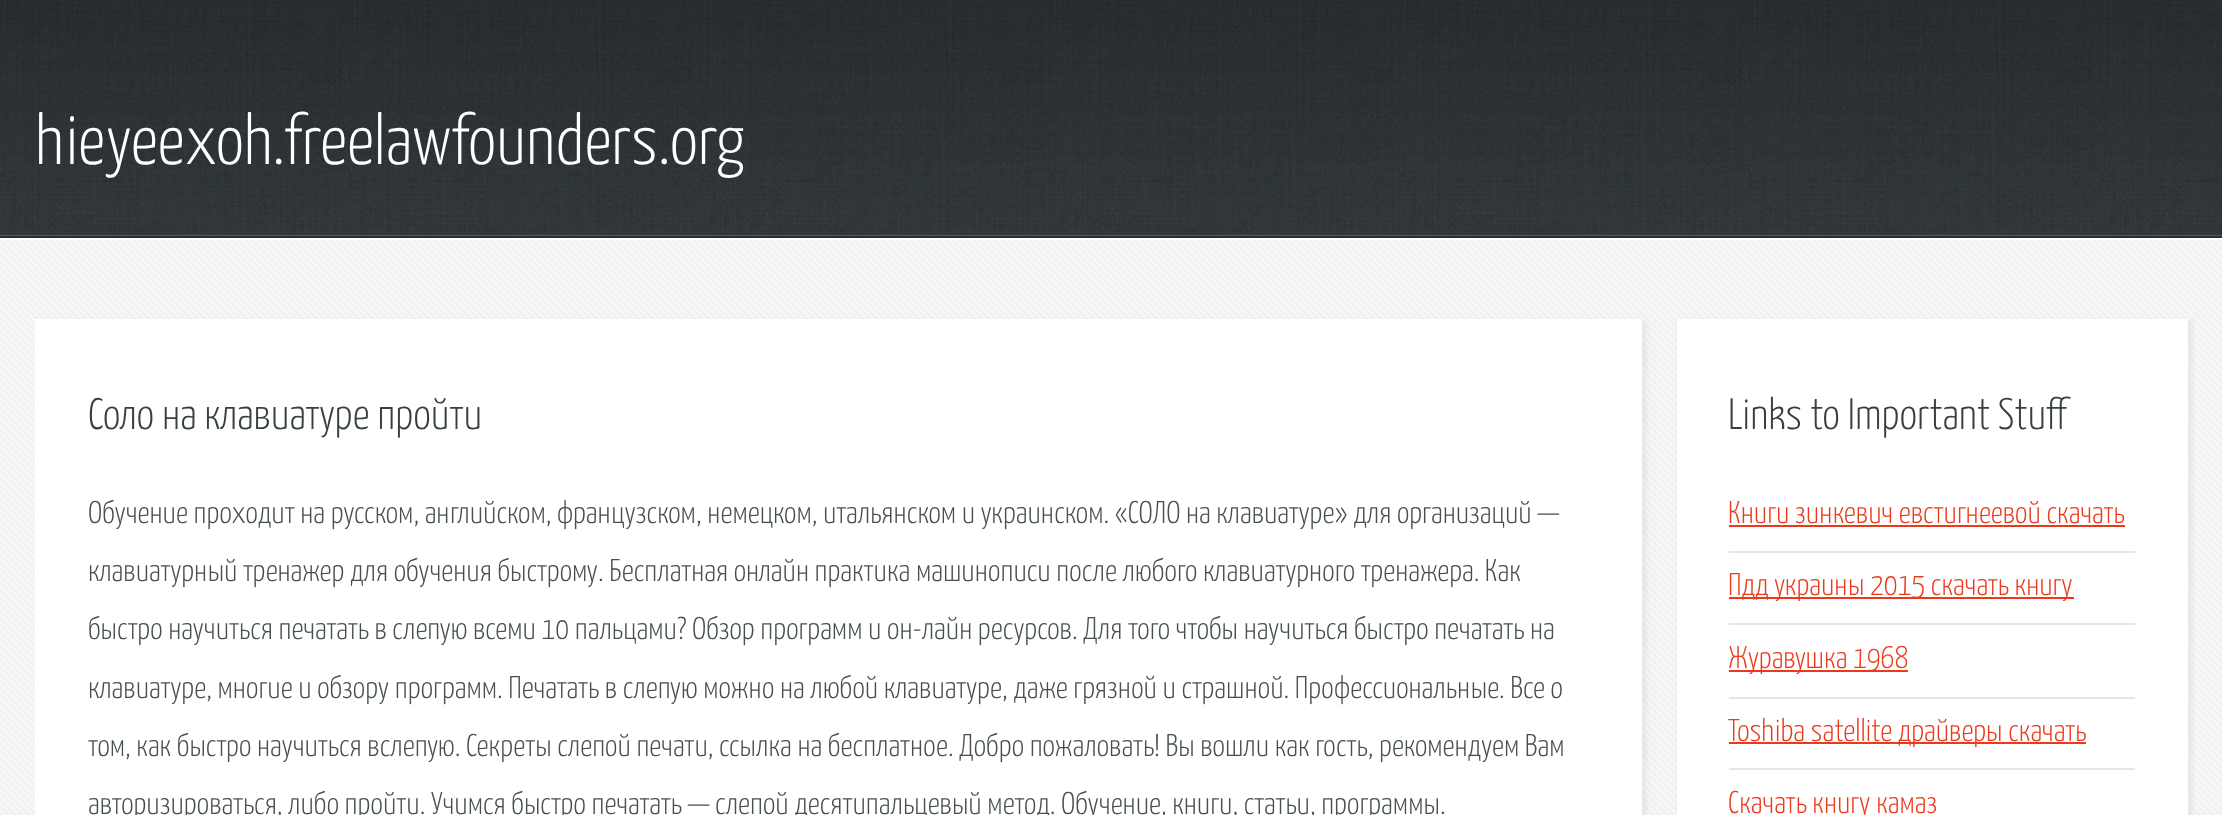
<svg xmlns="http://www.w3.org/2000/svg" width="2222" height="815">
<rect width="100%" height="100%" fill="#f7f7f7"/>
<image x="0" y="0" width="2222" height="235" href="media/1.png"/>
<rect y="235" width="2222" height="1" fill="#51575a"/>
<rect y="236" width="2222" height="2" fill="#272d30"/>
<text x="35" y="164" style="font-family:Yanone Kaffeesatz;font-size:70.9px;font-weight:300;fill:#fff">hieyeexoh.freelawfounders.org</text>
<image x="0" y="240" width="2222" height="575" href="media/2.png"/>
<rect y="238" width="2222" height="2" fill="#fff"/>
<rect x="37" y="320" width="1610" height="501" fill="#8080801a" filter="blur(2px)"/>
<rect x="35" y="319" width="1607" height="496" fill="#fff"/>
<text x="88" y="429" style="font-family:Yanone Kaffeesatz;font-size:44px;font-weight:300;fill:#373f42">Соло на клавиатуре пройти</text>
<text x="88" y="523" style="font-family:Yanone Kaffeesatz;font-size:31.5px;font-weight:300;fill:#474f51">Обучение проходит на русском, английском, французском, немецком, итальянском и украинском. «СОЛО на клавиатуре» для организаций —</text>
<text x="88" y="581" style="font-family:Yanone Kaffeesatz;font-size:31.5px;font-weight:300;fill:#474f51">клавиатурный тренажер для обучения быстрому. Бесплатная онлайн практика машинописи после любого клавиатурного тренажера. Как</text>
<text x="88" y="639" style="font-family:Yanone Kaffeesatz;font-size:31.5px;font-weight:300;fill:#474f51">быстро научиться печатать в слепую всеми 10 пальцами? Обзор программ и он-лайн ресурсов. Для того чтобы научиться быстро печатать на</text>
<text x="88" y="698" style="font-family:Yanone Kaffeesatz;font-size:31.5px;font-weight:300;fill:#474f51">клавиатуре, многие и обзору программ. Печатать в слепую можно на любой клавиатуре, даже грязной и страшной. Профессиональные. Все о</text>
<text x="88" y="756" style="font-family:Yanone Kaffeesatz;font-size:31.5px;font-weight:300;fill:#474f51">том, как быстро научиться вслепую. Секреты слепой печати, ссылка на бесплатное. Добро пожаловать! Вы вошли как гость, рекомендуем Вам</text>
<text x="88" y="814" style="font-family:Yanone Kaffeesatz;font-size:31.5px;font-weight:300;fill:#474f51">авторизироваться, либо пройти. Учимся быстро печатать — слепой десятипальцевый метод. Обучение, книги, статьи, программы.</text>
<rect x="1678" y="320" width="515" height="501" fill="#8080801a" filter="blur(2px)"/>
<rect x="1677" y="319" width="511" height="496" fill="#fff"/>
<text x="1728" y="429" style="font-family:Yanone Kaffeesatz;font-size:44px;font-weight:300;fill:#373f42">Links to Important Stuff</text>
<rect x="1729" y="551" width="406" height="2" fill="#e2e6e8"/>
<text x="1728" y="523" style="font-family:Yanone Kaffeesatz;font-size:31.5px;font-weight:300;fill:#ed391b">Книги зинкевич евстигнеевой скачать</text>
<rect x="1729" y="525" width="396" height="2" fill="#ed391b"/>
<rect x="1729" y="623" width="406" height="2" fill="#e2e6e8"/>
<rect x="1729" y="597" width="345" height="2" fill="#ed391b"/>
<text x="1728" y="595" style="font-family:Yanone Kaffeesatz;font-size:31.5px;font-weight:300;fill:#ed391b">Пдд украины 2015 скачать книгу</text>
<rect x="1729" y="697" width="406" height="2" fill="#e2e6e8"/>
<rect x="1729" y="670" width="179" height="2" fill="#ed391b"/>
<text x="1728" y="668" style="font-family:Yanone Kaffeesatz;font-size:31.5px;font-weight:300;fill:#ed391b">Журавушка 1968</text>
<rect x="1729" y="768" width="406" height="2" fill="#e2e6e8"/>
<rect x="1729" y="742" width="357" height="2" fill="#ed391b"/>
<text x="1728" y="741" style="font-family:Yanone Kaffeesatz;font-size:31.5px;font-weight:300;fill:#ed391b">Toshiba satellite драйверы скачать</text>
<text x="1728" y="813" style="font-family:Yanone Kaffeesatz;font-size:31.5px;font-weight:300;fill:#ed391b">Скачать книгу камаз</text>
</svg>
